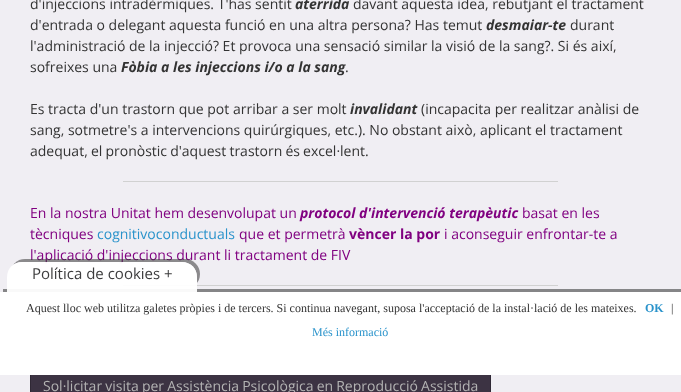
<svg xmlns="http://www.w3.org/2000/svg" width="681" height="392">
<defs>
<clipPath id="clip1"><path d="M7 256h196v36h-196zm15 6h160c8.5 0 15 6.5 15 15v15h-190v-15c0-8.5 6.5-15 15-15z" clip-rule="evenodd"/></clipPath>
</defs>
<rect width="100%" height="100%" fill="#f0eef3"/>
<text x="30" y="9" style="font-family:Open Sans;font-size:14px;fill:#333">d'injeccions intradèrmiques. T'has sentit</text>
<text x="295" y="9" style="font-family:Open Sans;font-size:14px;font-weight:bold;font-style:italic;fill:#333">aterrida</text>
<text x="353" y="9" style="font-family:Open Sans;font-size:14px;fill:#333">davant aquesta idea, rebutjant el tractament</text>
<text x="30" y="30" style="font-family:Open Sans;font-size:14px;fill:#333">d'entrada o delegant aquesta funció en una altra persona? Has temut</text>
<text x="486" y="30" style="font-family:Open Sans;font-size:14px;font-weight:bold;font-style:italic;fill:#333">desmaiar-te</text>
<text x="570" y="30" style="font-family:Open Sans;font-size:14px;fill:#333">durant</text>
<text x="30" y="51" style="font-family:Open Sans;font-size:14px;fill:#333">l'administració de la injecció? Et provoca una sensació similar la visió de la sang?. Si és així,</text>
<text x="30" y="72" style="font-family:Open Sans;font-size:14px;fill:#333">sofreixes una</text>
<text x="121" y="72" style="font-family:Open Sans;font-size:14px;font-weight:bold;font-style:italic;fill:#333">Fòbia a les injeccions i/o a la sang</text>
<text x="345" y="72" style="font-family:Open Sans;font-size:14px;fill:#333">.</text>
<text x="30" y="114" style="font-family:Open Sans;font-size:14px;fill:#333">Es tracta d'un trastorn que pot arribar a ser molt</text>
<text x="350" y="114" style="font-family:Open Sans;font-size:14px;font-weight:bold;font-style:italic;fill:#333">invalidant</text>
<text x="421" y="114" style="font-family:Open Sans;font-size:14px;fill:#333">(incapacita per realitzar anàlisi de</text>
<text x="30" y="135" style="font-family:Open Sans;font-size:14px;fill:#333">sang, sotmetre's a intervencions quirúrgiques, etc.). No obstant això, aplicant el tractament</text>
<text x="30" y="156" word-spacing="-0.5" style="font-family:Open Sans;font-size:14px;fill:#333">adequat, el pronòstic d'aquest trastorn és excel·lent.</text>
<rect x="123" y="181" width="435" height="1" fill="#d1d1d1"/>
<text x="30" y="218" style="font-family:Open Sans;font-size:14px;fill:#800080">En la nostra Unitat hem desenvolupat un</text>
<text x="300" y="218" style="font-family:Open Sans;font-size:14px;font-weight:bold;font-style:italic;fill:#800080">protocol d'intervenció terapèutic</text>
<text x="522" y="218" style="font-family:Open Sans;font-size:14px;fill:#800080">basat en les</text>
<text x="30" y="239" style="font-family:Open Sans;font-size:14px;fill:#800080">tècniques</text>
<text x="97" y="239" style="font-family:Open Sans;font-size:14px;fill:#2a93cb">cognitivoconductuals</text>
<text x="239" y="239" style="font-family:Open Sans;font-size:14px;fill:#800080">que et permetrà</text>
<text x="349" y="239" style="font-family:Open Sans;font-size:14px;font-weight:bold;fill:#800080">vèncer la por</text>
<text x="444" y="239" style="font-family:Open Sans;font-size:14px;fill:#800080">i aconseguir enfrontar-te a</text>
<text x="30" y="260" style="font-family:Open Sans;font-size:14px;fill:#800080">l'aplicació d'injeccions durant li tractament de FIV</text>
<rect x="123" y="285" width="435" height="1" fill="#d1d1d1"/>
<rect x="31" y="375" width="459" height="17" fill="#3c3343"/>
<rect x="30.5" y="369.5" width="460" height="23" fill="none" stroke="#2f2835"/>
<text x="43" y="391" word-spacing="-0.5" style="font-family:Open Sans;font-size:14px;fill:#b3b3b3">Sol·licitar visita per Assistència Psicològica en Reproducció Assistida</text>
<rect x="3" y="289" width="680" height="83" fill="#3232328f" filter="blur(0.5px)"/>
<rect y="292" width="681" height="83" fill="#fff"/>
<g clip-path="url(#clip1)">
<rect x="10" y="259" width="190" height="30" rx="15" fill="#32323287" filter="blur(0.5px)"/>
</g>
<path d="M22 262h160c8.5 0 15 6.5 15 15v15h-190v-15c0-8.5 6.5-15 15-15z" fill="#fffffff2"/>
<text x="32" y="279" style="font-family:Open Sans;font-size:15px;fill:#3c3c3d">Política de cookies +</text>
<text x="26" y="312" style="font-family:Liberation Serif;font-size:12px;fill:#333">Aquest lloc web utilitza galetes pròpies i de tercers. Si continua navegant, suposa l'acceptació de la instal·lació de les mateixes.</text>
<text x="645" y="312" style="font-family:Liberation Serif;font-size:12px;font-weight:bold;fill:#2a93cb">OK</text>
<text x="671" y="312" style="font-family:Liberation Serif;font-size:12px;fill:#333">|</text>
<text x="312" y="336" style="font-family:Liberation Serif;font-size:12px;fill:#2a93cb">Més informació</text>
</svg>
